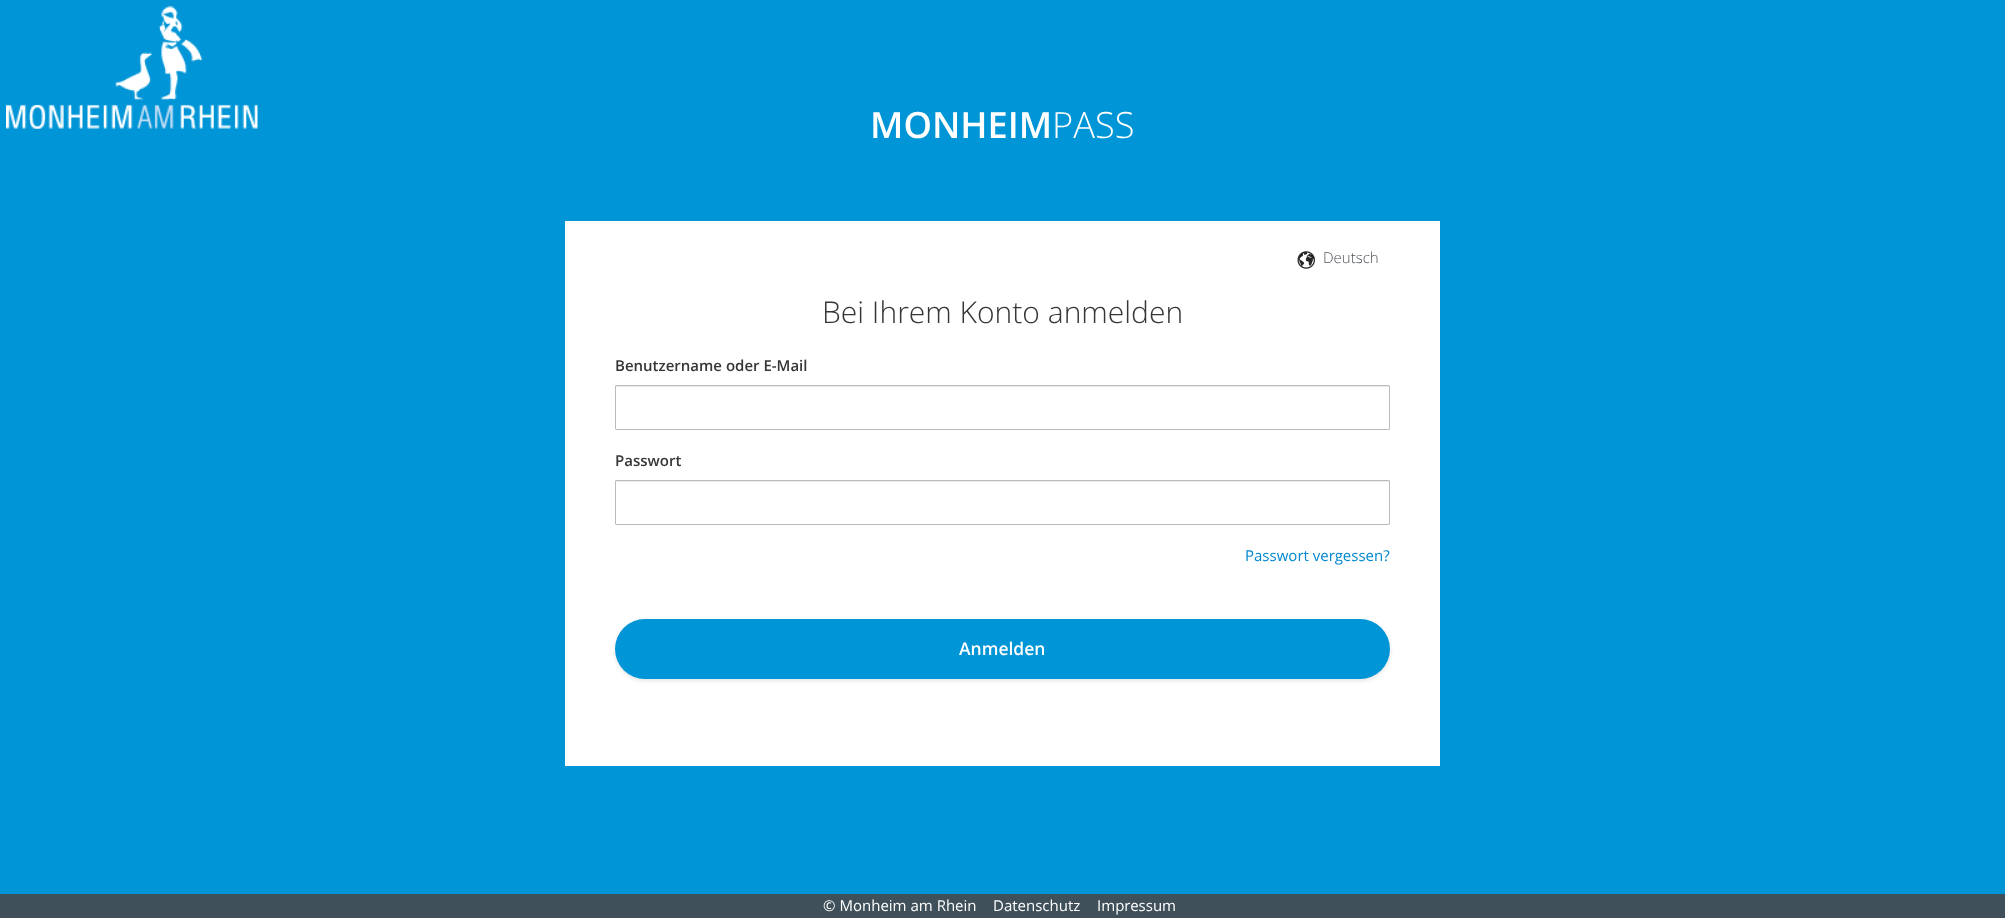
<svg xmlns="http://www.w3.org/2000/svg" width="2005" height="918">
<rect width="100%" height="100%" fill="#0095d6"/>
<image x="6" y="6" width="252" height="123" href="media/1.png"/>
<text x="870" y="138" style="font-family:Open Sans;font-size:36.25px;font-weight:600;fill:#fff">MONHEIM</text>
<text x="1052" y="138" style="font-family:Open Sans;font-size:36.25px;font-weight:300;fill:#fff">PASS</text>
<rect x="565" y="221" width="875" height="545" fill="#fff"/>
<image x="1297" y="251" width="18" height="18" href="media/2.png"/>
<text x="1323" y="263" style="font-family:Open Sans;font-size:15px;font-weight:300;fill:#4d5258">Deutsch</text>
<text x="822" y="323" style="font-family:Open Sans;font-size:30px;font-weight:300;fill:#363636">Bei Ihrem Konto anmelden</text>
<text x="615" y="371" style="font-family:Open Sans;font-size:15px;font-weight:600;fill:#363636">Benutzername oder E-Mail</text>
<rect x="616" y="386" width="773" height="1" fill="#ececec"/>
<rect x="615.5" y="385.5" width="774" height="44" rx="0.5" fill="none" stroke="#bbb"/>
<text x="615" y="466" style="font-family:Open Sans;font-size:15px;font-weight:600;fill:#363636">Passwort</text>
<rect x="616" y="481" width="773" height="1" fill="#ececec"/>
<rect x="615.5" y="480.5" width="774" height="44" rx="0.5" fill="none" stroke="#bbb"/>
<text x="1245" y="561" style="font-family:Open Sans;font-size:15px;fill:#0088ce">Passwort vergessen?</text>
<rect x="615" y="621" width="775" height="60" rx="30" fill="#0303031a" filter="blur(2px)"/>
<rect x="615" y="619" width="775" height="60" rx="30" fill="#0095d6"/>
<text x="959" y="655" style="font-family:Open Sans;font-size:17.5px;font-weight:600;fill:#fff">Anmelden</text>
<rect y="894" width="2005" height="24" fill="#40505a"/>
<text x="823" y="911" style="font-family:Open Sans;font-size:15px;fill:#fff">© Monheim am Rhein</text>
<text x="993" y="911" style="font-family:Open Sans;font-size:15px;fill:#fff">Datenschutz</text>
<text x="1097" y="911" style="font-family:Open Sans;font-size:15px;fill:#fff">Impressum</text>
</svg>
